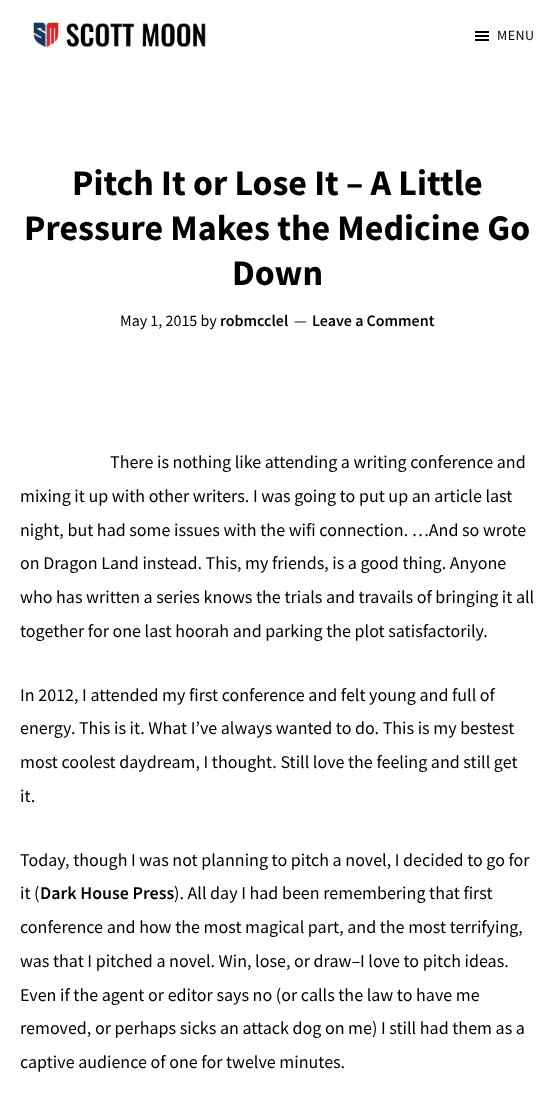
<svg xmlns="http://www.w3.org/2000/svg" width="555" height="1110">
<rect width="100%" height="100%" fill="#fff"/>
<image x="33" y="22" width="173" height="26" href="media/1.png"/>
<image x="475" y="31" width="14" height="10" href="media/2.png"/>
<text x="497" y="40" style="font-family:Source Sans Pro;font-size:14px;letter-spacing:0.5px;fill:#000">MENU</text>
<text x="72" y="195" style="font-family:Source Sans Pro;font-size:36px;font-weight:bold;fill:#000">Pitch It or Lose It – A Little</text>
<text x="24" y="240" style="font-family:Source Sans Pro;font-size:36px;font-weight:bold;fill:#000">Pressure Makes the Medicine Go</text>
<text x="232" y="285" style="font-family:Source Sans Pro;font-size:36px;font-weight:bold;fill:#000">Down</text>
<text x="120" y="326" style="font-family:Source Sans Pro;font-size:16px;fill:#000">May 1, 2015 by</text>
<text x="220" y="326" style="font-family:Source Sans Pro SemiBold;font-size:16px;font-weight:600;fill:#000">robmcclel</text>
<text x="294" y="326" style="font-family:Source Sans Pro;font-size:16px;fill:#000">—</text>
<text x="312" y="326" style="font-family:Source Sans Pro SemiBold;font-size:16px;font-weight:600;fill:#000">Leave a Comment</text>
<text x="110" y="468" style="font-family:Source Sans Pro;font-size:18px;fill:#000">There is nothing like attending a writing conference and</text>
<text x="20" y="502" style="font-family:Source Sans Pro;font-size:18px;fill:#000">mixing it up with other writers. I was going to put up an article last</text>
<text x="20" y="536" style="font-family:Source Sans Pro;font-size:18px;fill:#000">night, but had some issues with the wifi connection. …And so wrote</text>
<text x="20" y="569" style="font-family:Source Sans Pro;font-size:18px;fill:#000">on Dragon Land instead. This, my friends, is a good thing. Anyone</text>
<text x="20" y="603" style="font-family:Source Sans Pro;font-size:18px;fill:#000">who has written a series knows the trials and travails of bringing it all</text>
<text x="20" y="637" style="font-family:Source Sans Pro;font-size:18px;fill:#000">together for one last hoorah and parking the plot satisfactorily.</text>
<text x="20" y="701" style="font-family:Source Sans Pro;font-size:18px;fill:#000">In 2012, I attended my first conference and felt young and full of</text>
<text x="20" y="734" style="font-family:Source Sans Pro;font-size:18px;fill:#000">energy. This is it. What I’ve always wanted to do. This is my bestest</text>
<text x="20" y="768" style="font-family:Source Sans Pro;font-size:18px;fill:#000">most coolest daydream, I thought. Still love the feeling and still get</text>
<text x="20" y="802" style="font-family:Source Sans Pro;font-size:18px;fill:#000">it.</text>
<text x="20" y="866" style="font-family:Source Sans Pro;font-size:18px;fill:#000">Today, though I was not planning to pitch a novel, I decided to go for</text>
<text x="20" y="899" style="font-family:Source Sans Pro;font-size:18px;fill:#000">it (</text>
<text x="40" y="899" style="font-family:Source Sans Pro SemiBold;font-size:18px;font-weight:600;fill:#000">Dark House Press</text>
<text x="174" y="899" style="font-family:Source Sans Pro;font-size:18px;fill:#000">). All day I had been remembering that first</text>
<text x="20" y="933" style="font-family:Source Sans Pro;font-size:18px;fill:#000">conference and how the most magical part, and the most terrifying,</text>
<text x="20" y="967" style="font-family:Source Sans Pro;font-size:18px;fill:#000">was that I pitched a novel. Win, lose, or draw–I love to pitch ideas.</text>
<text x="20" y="1001" style="font-family:Source Sans Pro;font-size:18px;fill:#000">Even if the agent or editor says no (or calls the law to have me</text>
<text x="20" y="1034" style="font-family:Source Sans Pro;font-size:18px;fill:#000">removed, or perhaps sicks an attack dog on me) I still had them as a</text>
<text x="20" y="1068" style="font-family:Source Sans Pro;font-size:18px;fill:#000">captive audience of one for twelve minutes.</text>
</svg>
